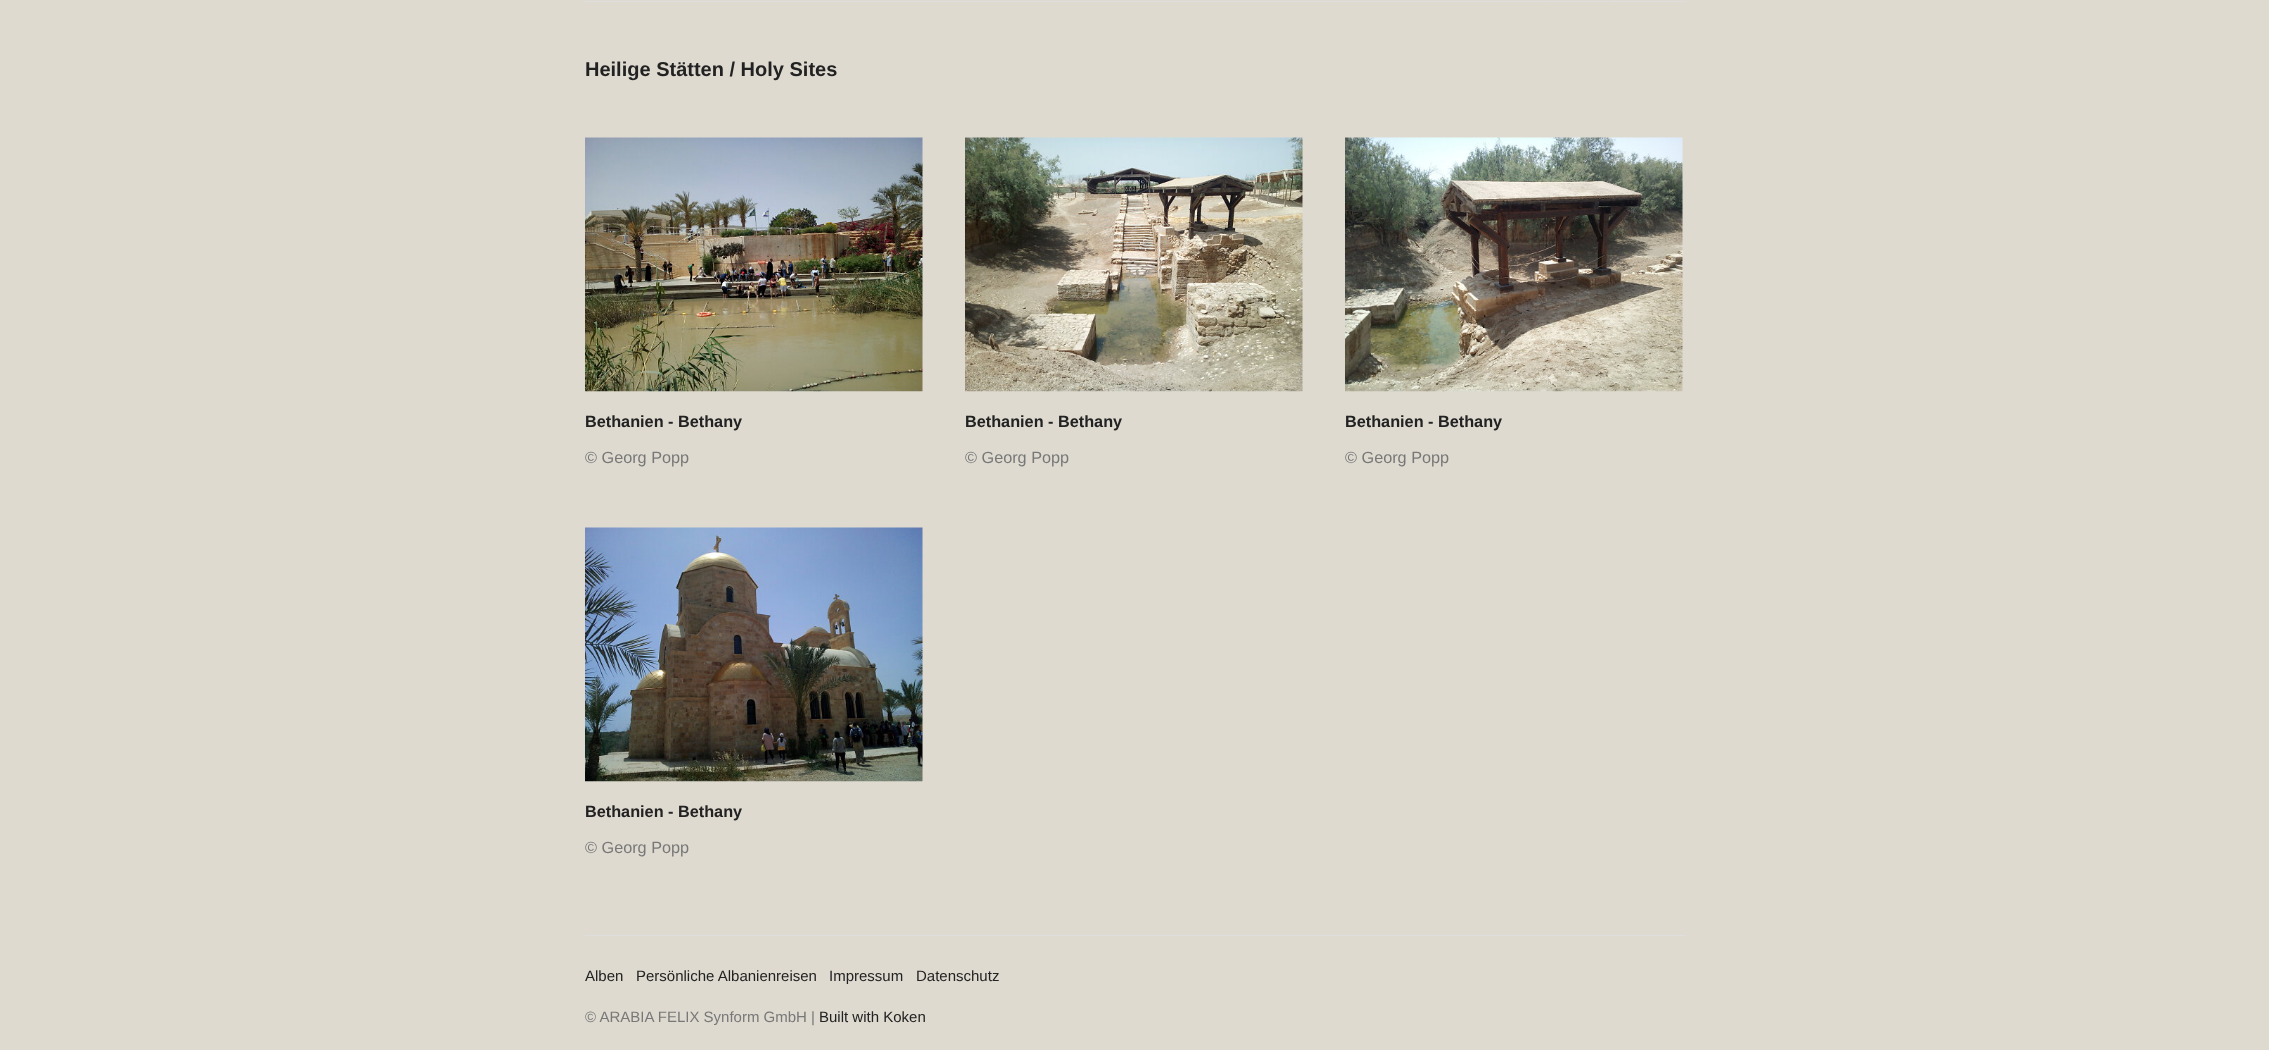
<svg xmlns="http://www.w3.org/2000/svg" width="2269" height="1050">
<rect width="100%" height="100%" fill="#dedad0"/>
<rect x="585" y="1" width="1100" height="1" fill="#dedede"/>
<rect x="1546" width="1" height="1" fill="#dedede"/>
<rect x="1615" width="1" height="1" fill="#dedede"/>
<text x="585" y="76" style="font-family:Liberation Sans;font-size:20px;font-weight:bold;fill:#222">Heilige Stätten / Holy Sites</text>
<image x="585" y="137" width="338" height="255" href="media/1.png"/>
<text x="585" y="427" style="font-family:Liberation Sans;font-size:16.25px;font-weight:bold;fill:#222">Bethanien - Bethany</text>
<text x="585" y="463" style="font-family:Liberation Sans;font-size:16.25px;fill:#787878">© Georg Popp</text>
<image x="965" y="137" width="338" height="255" href="media/2.png"/>
<text x="965" y="427" style="font-family:Liberation Sans;font-size:16.25px;font-weight:bold;fill:#222">Bethanien - Bethany</text>
<text x="965" y="463" style="font-family:Liberation Sans;font-size:16.25px;fill:#787878">© Georg Popp</text>
<image x="1345" y="137" width="338" height="255" href="media/3.png"/>
<text x="1345" y="427" style="font-family:Liberation Sans;font-size:16.25px;font-weight:bold;fill:#222">Bethanien - Bethany</text>
<text x="1345" y="463" style="font-family:Liberation Sans;font-size:16.25px;fill:#787878">© Georg Popp</text>
<image x="585" y="527" width="338" height="255" href="media/4.png"/>
<text x="585" y="817" style="font-family:Liberation Sans;font-size:16.25px;font-weight:bold;fill:#222">Bethanien - Bethany</text>
<text x="585" y="853" style="font-family:Liberation Sans;font-size:16.25px;fill:#787878">© Georg Popp</text>
<rect x="585" y="935" width="1100" height="1" fill="#dedede"/>
<text x="585" y="981" style="font-family:Liberation Sans;font-size:15px;fill:#222">Alben</text>
<text x="636" y="981" style="font-family:Liberation Sans;font-size:15px;fill:#222">Persönliche Albanienreisen</text>
<text x="829" y="981" style="font-family:Liberation Sans;font-size:15px;fill:#222">Impressum</text>
<text x="916" y="981" style="font-family:Liberation Sans;font-size:15px;fill:#222">Datenschutz</text>
<text x="585" y="1022" style="font-family:Liberation Sans;font-size:15px;fill:#787878">© ARABIA FELIX Synform GmbH |</text>
<text x="819" y="1022" style="font-family:Liberation Sans;font-size:15px;fill:#222">Built with Koken</text>
</svg>
